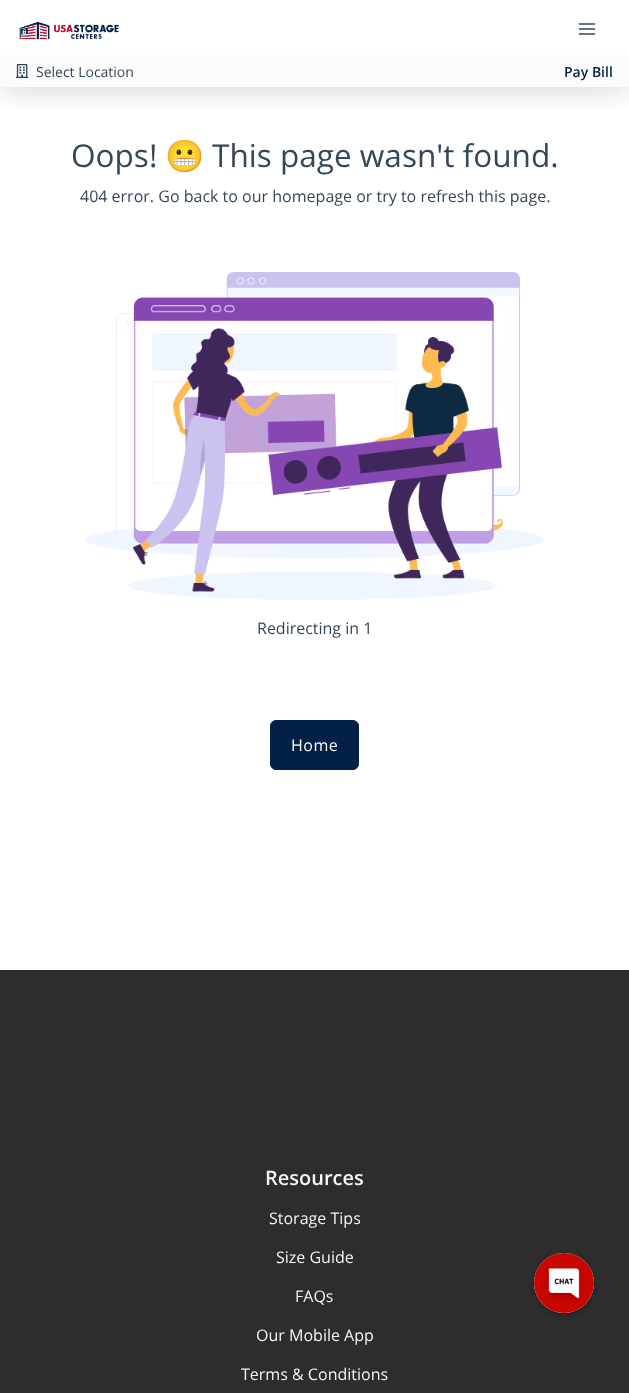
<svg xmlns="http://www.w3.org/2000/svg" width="629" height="1393">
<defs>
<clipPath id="clip1"><rect x="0" y="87" width="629" height="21"/></clipPath>
</defs>
<rect width="100%" height="100%" fill="#fff"/>
<g clip-path="url(#clip1)">
<rect y="2" width="629" height="87" fill="#0000002b" filter="blur(16px)"/>
</g>
<image x="19" y="21" width="100" height="19" href="media/1.png"/>
<image x="578" y="23" width="18" height="12" href="media/2.png"/>
<rect y="55" width="629" height="32" fill="#fcfbfc"/>
<image x="16" y="64" width="13" height="14" href="media/3.png"/>
<text x="36" y="77" style="font-family:Open Sans;font-size:14px;fill:#33475b">Select Location</text>
<text x="564" y="77" style="font-family:Open Sans;font-size:14px;font-weight:600;fill:#032046">Pay Bill</text>
<text x="71" y="167" style="font-family:Open Sans;font-size:31.5px;fill:#33475b">Oops!</text>
<text x="165" y="167" style="font-family:Noto Color Emoji;font-size:31.5px;fill:#33475b">😬</text>
<text x="212" y="167" style="font-family:Open Sans;font-size:31.5px;fill:#33475b">This page wasn't found.</text>
<text x="80" y="202" style="font-family:Open Sans;font-size:16px;fill:#33475b">404 error. Go back to our homepage or try to refresh this page.</text>
<image x="85" y="272" width="459" height="328" href="media/4.png"/>
<text x="257" y="634" style="font-family:Open Sans;font-size:16px;fill:#33475b">Redirecting in 1</text>
<rect x="270.5" y="720.5" width="88" height="49" rx="5.5" fill="#032046" stroke="#032046"/>
<text x="291" y="751" style="font-family:Open Sans;font-size:16px;letter-spacing:0.5px;fill:#fff">Home</text>
<rect y="970" width="629" height="423" fill="#2d2d2d"/>
<text x="265" y="1185" style="font-family:Open Sans;font-size:20px;font-weight:600;fill:#f2f4f7">Resources</text>
<text x="269" y="1224" style="font-family:Open Sans;font-size:16px;fill:#f2f4f7">Storage Tips</text>
<text x="276" y="1263" style="font-family:Open Sans;font-size:16px;fill:#f2f4f7">Size Guide</text>
<text x="295" y="1302" style="font-family:Open Sans;font-size:16px;fill:#f2f4f7">FAQs</text>
<text x="256" y="1341" style="font-family:Open Sans;font-size:16px;fill:#f2f4f7">Our Mobile App</text>
<text x="241" y="1380" style="font-family:Open Sans;font-size:16px;fill:#f2f4f7">Terms &amp; Conditions</text>
<rect x="534" y="1255" width="60" height="60" rx="30" fill="#00000040" filter="blur(2px)"/>
<circle cx="564" cy="1283" r="30" fill="#fff"/>
<image x="534" y="1253" width="60" height="60" href="media/5.png"/>
</svg>
